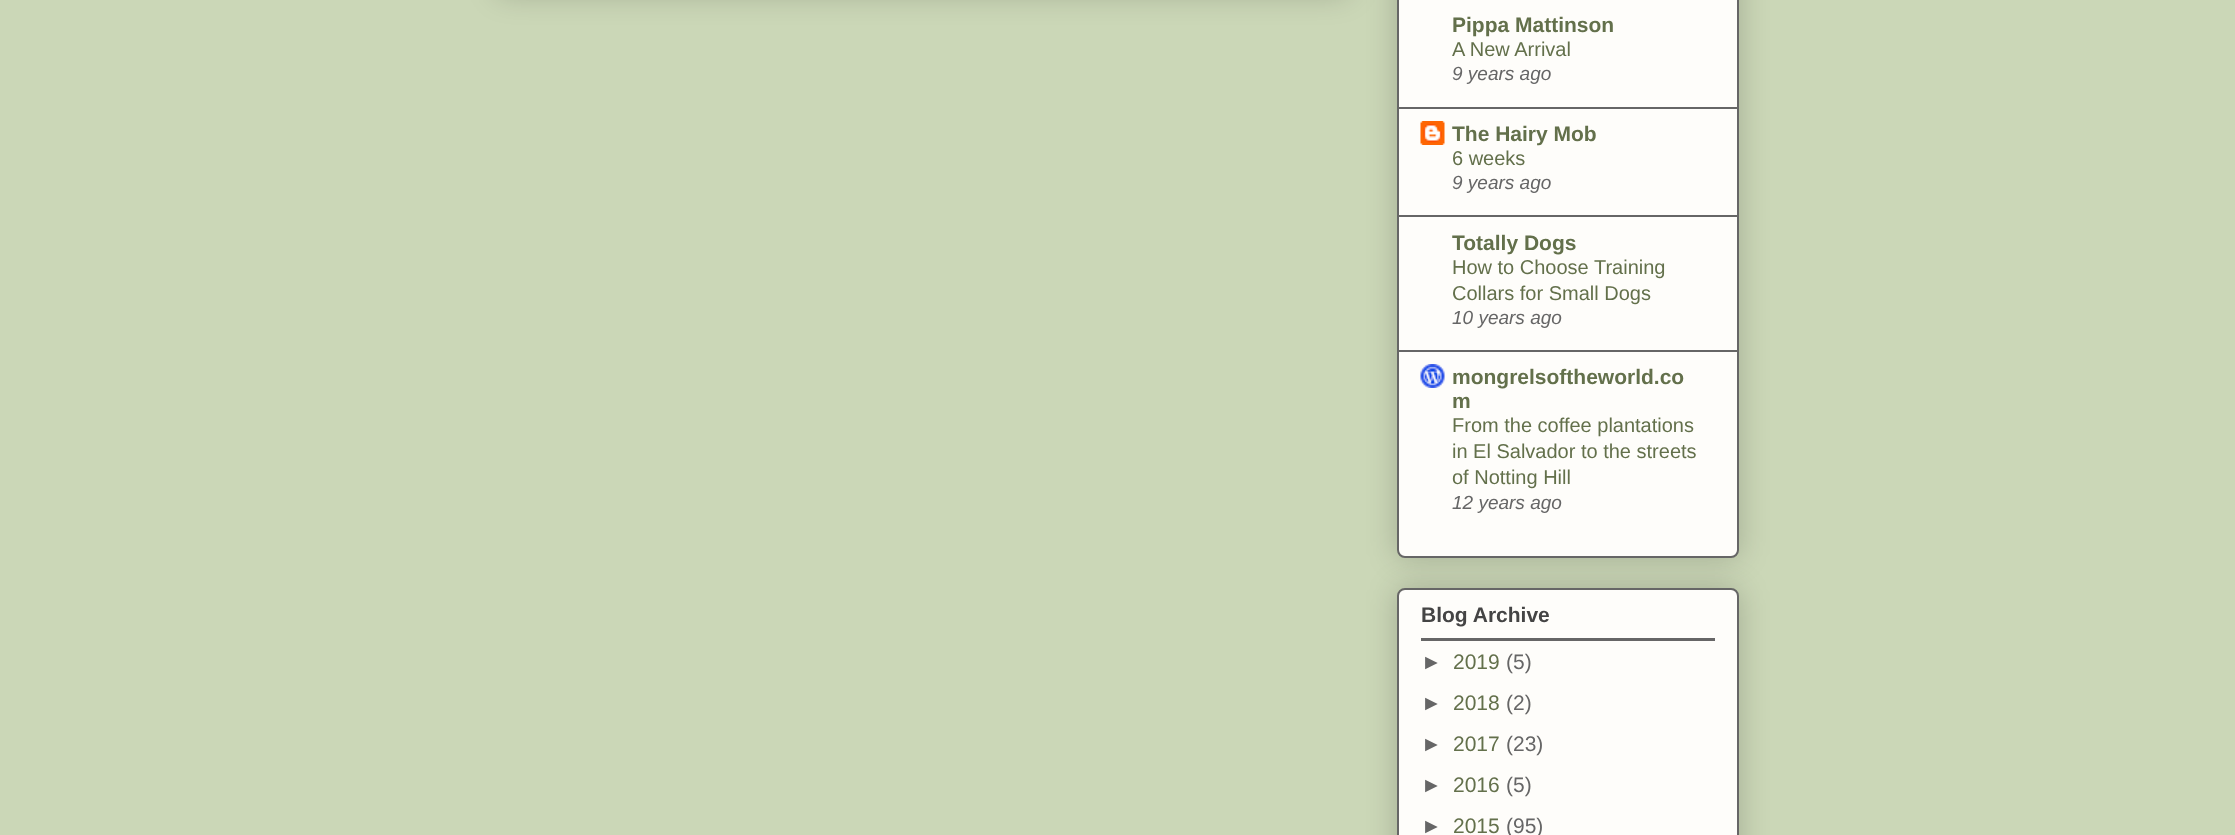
<svg xmlns="http://www.w3.org/2000/svg" width="2235" height="835">
<rect width="100%" height="100%" fill="#cbd7b7"/>
<rect x="497" y="-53" width="852" height="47" rx="8" fill="#00000033" filter="blur(15px)"/>
<rect x="1397" y="-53" width="342" height="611" rx="8" fill="#00000033" filter="blur(15px)"/>
<rect x="1398" y="-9" width="340" height="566" rx="7" fill="#fefdfa" stroke="#666" stroke-width="2"/>
<rect x="1398" y="107" width="339" height="2" fill="#666"/>
<text x="1452" y="32" style="font-family:Liberation Sans;font-size:21px;font-weight:bold;fill:#63704b">Pippa Mattinson</text>
<text x="1452" y="56" style="font-family:Liberation Sans;font-size:20px;fill:#63704b">A New Arrival</text>
<text x="1452" y="80" style="font-family:Liberation Sans;font-size:19px;font-style:italic;fill:#666">9 years ago</text>
<rect x="1398" y="215" width="339" height="2" fill="#666"/>
<image x="1420" y="121" width="25" height="24" href="media/1.png"/>
<text x="1452" y="141" style="font-family:Liberation Sans;font-size:21px;font-weight:bold;fill:#63704b">The Hairy Mob</text>
<text x="1452" y="165" style="font-family:Liberation Sans;font-size:20px;fill:#63704b">6 weeks</text>
<text x="1452" y="189" style="font-family:Liberation Sans;font-size:19px;font-style:italic;fill:#666">9 years ago</text>
<rect x="1398" y="350" width="339" height="2" fill="#666"/>
<text x="1452" y="250" style="font-family:Liberation Sans;font-size:21px;font-weight:bold;fill:#63704b">Totally Dogs</text>
<text x="1452" y="274" style="font-family:Liberation Sans;font-size:20px;fill:#63704b">How to Choose Training</text>
<text x="1452" y="300" style="font-family:Liberation Sans;font-size:20px;fill:#63704b">Collars for Small Dogs</text>
<text x="1452" y="324" style="font-family:Liberation Sans;font-size:19px;font-style:italic;fill:#666">10 years ago</text>
<image x="1420" y="364" width="25" height="24" href="media/2.png"/>
<text x="1452" y="384" style="font-family:Liberation Sans;font-size:21px;font-weight:bold;fill:#63704b">mongrelsoftheworld.co</text>
<text x="1452" y="408" style="font-family:Liberation Sans;font-size:21px;font-weight:bold;fill:#63704b">m</text>
<text x="1452" y="432" style="font-family:Liberation Sans;font-size:20px;fill:#63704b">From the coffee plantations</text>
<text x="1452" y="458" style="font-family:Liberation Sans;font-size:20px;fill:#63704b">in El Salvador to the streets</text>
<text x="1452" y="484" style="font-family:Liberation Sans;font-size:20px;fill:#63704b">of Notting Hill</text>
<text x="1452" y="509" style="font-family:Liberation Sans;font-size:19px;font-style:italic;fill:#666">12 years ago</text>
<rect x="1397" y="588" width="342" height="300" rx="8" fill="#00000033" filter="blur(15px)"/>
<rect x="1398" y="589" width="340" height="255" rx="7" fill="#fefdfa" stroke="#666" stroke-width="2"/>
<text x="1421" y="622" style="font-family:Liberation Sans;font-size:21px;font-weight:bold;fill:#444">Blog Archive</text>
<rect x="1421" y="638" width="294" height="3" fill="#666"/>
<text x="1421" y="669" style="font-family:Liberation Sans;font-size:21px;fill:#666">►</text>
<text x="1453" y="669" style="font-family:Liberation Sans;font-size:21px;fill:#63704b">2019</text>
<text x="1506" y="669" style="font-family:Liberation Sans;font-size:21px;fill:#666">(5)</text>
<text x="1421" y="710" style="font-family:Liberation Sans;font-size:21px;fill:#666">►</text>
<text x="1453" y="710" style="font-family:Liberation Sans;font-size:21px;fill:#63704b">2018</text>
<text x="1506" y="710" style="font-family:Liberation Sans;font-size:21px;fill:#666">(2)</text>
<text x="1421" y="751" style="font-family:Liberation Sans;font-size:21px;fill:#666">►</text>
<text x="1453" y="751" style="font-family:Liberation Sans;font-size:21px;fill:#63704b">2017</text>
<text x="1506" y="751" style="font-family:Liberation Sans;font-size:21px;fill:#666">(23)</text>
<text x="1421" y="792" style="font-family:Liberation Sans;font-size:21px;fill:#666">►</text>
<text x="1453" y="792" style="font-family:Liberation Sans;font-size:21px;fill:#63704b">2016</text>
<text x="1506" y="792" style="font-family:Liberation Sans;font-size:21px;fill:#666">(5)</text>
<text x="1421" y="833" style="font-family:Liberation Sans;font-size:21px;fill:#666">►</text>
<text x="1453" y="833" style="font-family:Liberation Sans;font-size:21px;fill:#63704b">2015</text>
<text x="1506" y="833" style="font-family:Liberation Sans;font-size:21px;fill:#666">(95)</text>
</svg>
